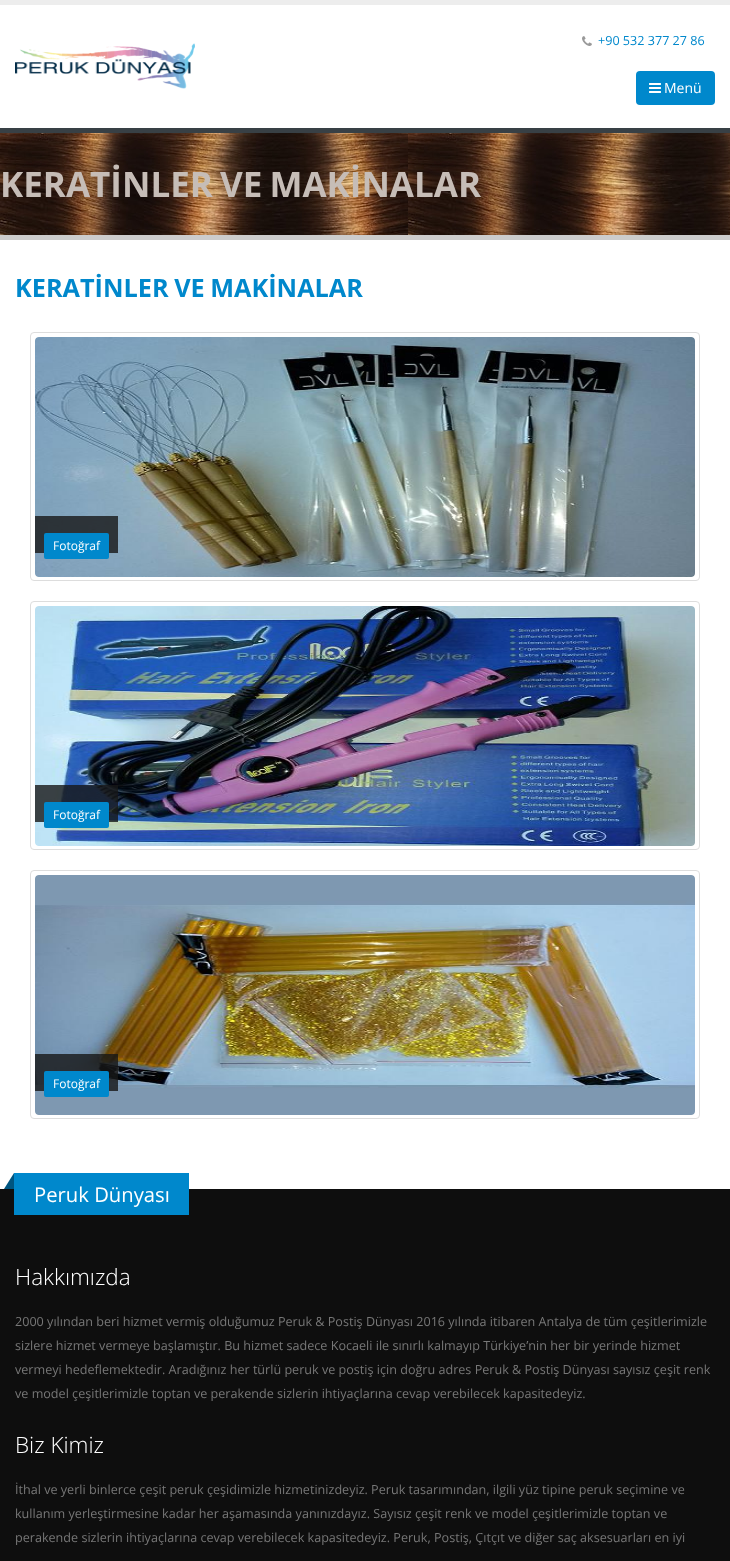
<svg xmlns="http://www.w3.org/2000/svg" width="730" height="1561">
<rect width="100%" height="100%" fill="#fff"/>
<rect width="730" height="5" fill="#ededed"/>
<image x="15" y="43" width="180" height="46" href="media/1.png"/>
<image x="582" y="36" width="10" height="10" href="media/2.png"/>
<text x="598" y="45" style="font-family:Open Sans;font-size:12.6px;fill:#08c">+90 532 377 27 86</text>
<rect x="636" y="71" width="79" height="34" rx="4" fill="#08c"/>
<image x="649" y="83" width="12" height="10" href="media/3.png"/>
<text x="664" y="93" style="font-family:Open Sans;font-size:14px;fill:#fff">Menü</text>
<image x="0" y="133" width="730" height="102" href="media/4.png"/>
<rect y="128" width="730" height="5" fill="#384045"/>
<rect y="235" width="730" height="5" fill="#ccc"/>
<text x="0" y="197" word-spacing="-2" style="font-family:Open Sans;font-size:35px;font-weight:bold;fill:#c6bdb7">KERATİNLER VE MAKİNALAR</text>
<text x="15" y="297" word-spacing="-1" style="font-family:Open Sans;font-size:25.25px;font-weight:bold;fill:#08c">KERATİNLER VE MAKİNALAR</text>
<rect x="30.5" y="332.5" width="669" height="248" rx="3.5" fill="none" stroke="#ddd"/>
<image x="35" y="337" width="660" height="240" href="media/5.png"/>
<rect x="35" y="516" width="83" height="37" fill="#171717cc"/>
<rect x="44" y="533" width="65" height="26" rx="2" fill="#08c"/>
<text x="53" y="550" style="font-family:Open Sans;font-size:12px;fill:#fff">Fotoğraf</text>
<rect x="30.5" y="601.5" width="669" height="248" rx="3.5" fill="none" stroke="#ddd"/>
<image x="35" y="606" width="660" height="240" href="media/6.png"/>
<rect x="35" y="785" width="83" height="37" fill="#171717cc"/>
<rect x="44" y="802" width="65" height="26" rx="2" fill="#08c"/>
<text x="53" y="819" style="font-family:Open Sans;font-size:12px;fill:#fff">Fotoğraf</text>
<rect x="30.5" y="870.5" width="669" height="248" rx="3.5" fill="none" stroke="#ddd"/>
<image x="35" y="875" width="660" height="240" href="media/7.png"/>
<rect x="35" y="1054" width="83" height="37" fill="#171717cc"/>
<rect x="44" y="1071" width="65" height="26" rx="2" fill="#08c"/>
<text x="53" y="1088" style="font-family:Open Sans;font-size:12px;fill:#fff">Fotoğraf</text>
<rect y="1189" width="730" height="372" fill="#0e0e0e"/>
<rect x="14" y="1173" width="175" height="42" fill="#08c"/>
<path d="M14 1173v16h-10z" fill="#005580"/>
<text x="34" y="1202" style="font-family:Open Sans;font-size:20.25px;fill:#fff">Peruk Dünyası</text>
<text x="15" y="1285" style="font-family:Open Sans;font-size:22.5px;font-weight:300;fill:#fff">Hakkımızda</text>
<text x="15" y="1326" style="font-family:Open Sans;font-size:12.6px;fill:#777">2000 yılından beri hizmet vermiş olduğumuz Peruk &amp; Postiş Dünyası 2016 yılında itibaren Antalya de tüm çeşitlerimizle</text>
<text x="15" y="1350" style="font-family:Open Sans;font-size:12.6px;fill:#777">sizlere hizmet vermeye başlamıştır. Bu hizmet sadece Kocaeli ile sınırlı kalmayıp Türkiye’nin her bir yerinde hizmet</text>
<text x="15" y="1374" style="font-family:Open Sans;font-size:12.6px;fill:#777">vermeyi hedeflemektedir. Aradığınız her türlü peruk ve postiş için doğru adres Peruk &amp; Postiş Dünyası sayısız çeşit renk</text>
<text x="15" y="1398" style="font-family:Open Sans;font-size:12.6px;fill:#777">ve model çeşitlerimizle toptan ve perakende sizlerin ihtiyaçlarına cevap verebilecek kapasitedeyiz.</text>
<text x="15" y="1453" style="font-family:Open Sans;font-size:22.5px;font-weight:300;fill:#fff">Biz Kimiz</text>
<text x="15" y="1494" style="font-family:Open Sans;font-size:12.6px;fill:#777">İthal ve yerli binlerce çeşit peruk çeşidimizle hizmetinizdeyiz. Peruk tasarımından, ilgili yüz tipine peruk seçimine ve</text>
<text x="15" y="1518" style="font-family:Open Sans;font-size:12.6px;fill:#777">kullanım yerleştirmesine kadar her aşamasında yanınızdayız. Sayısız çeşit renk ve model çeşitlerimizle toptan ve</text>
<text x="15" y="1542" style="font-family:Open Sans;font-size:12.6px;fill:#777">perakende sizlerin ihtiyaçlarına cevap verebilecek kapasitedeyiz. Peruk, Postiş, Çıtçıt ve diğer saç aksesuarları en iyi</text>
</svg>
